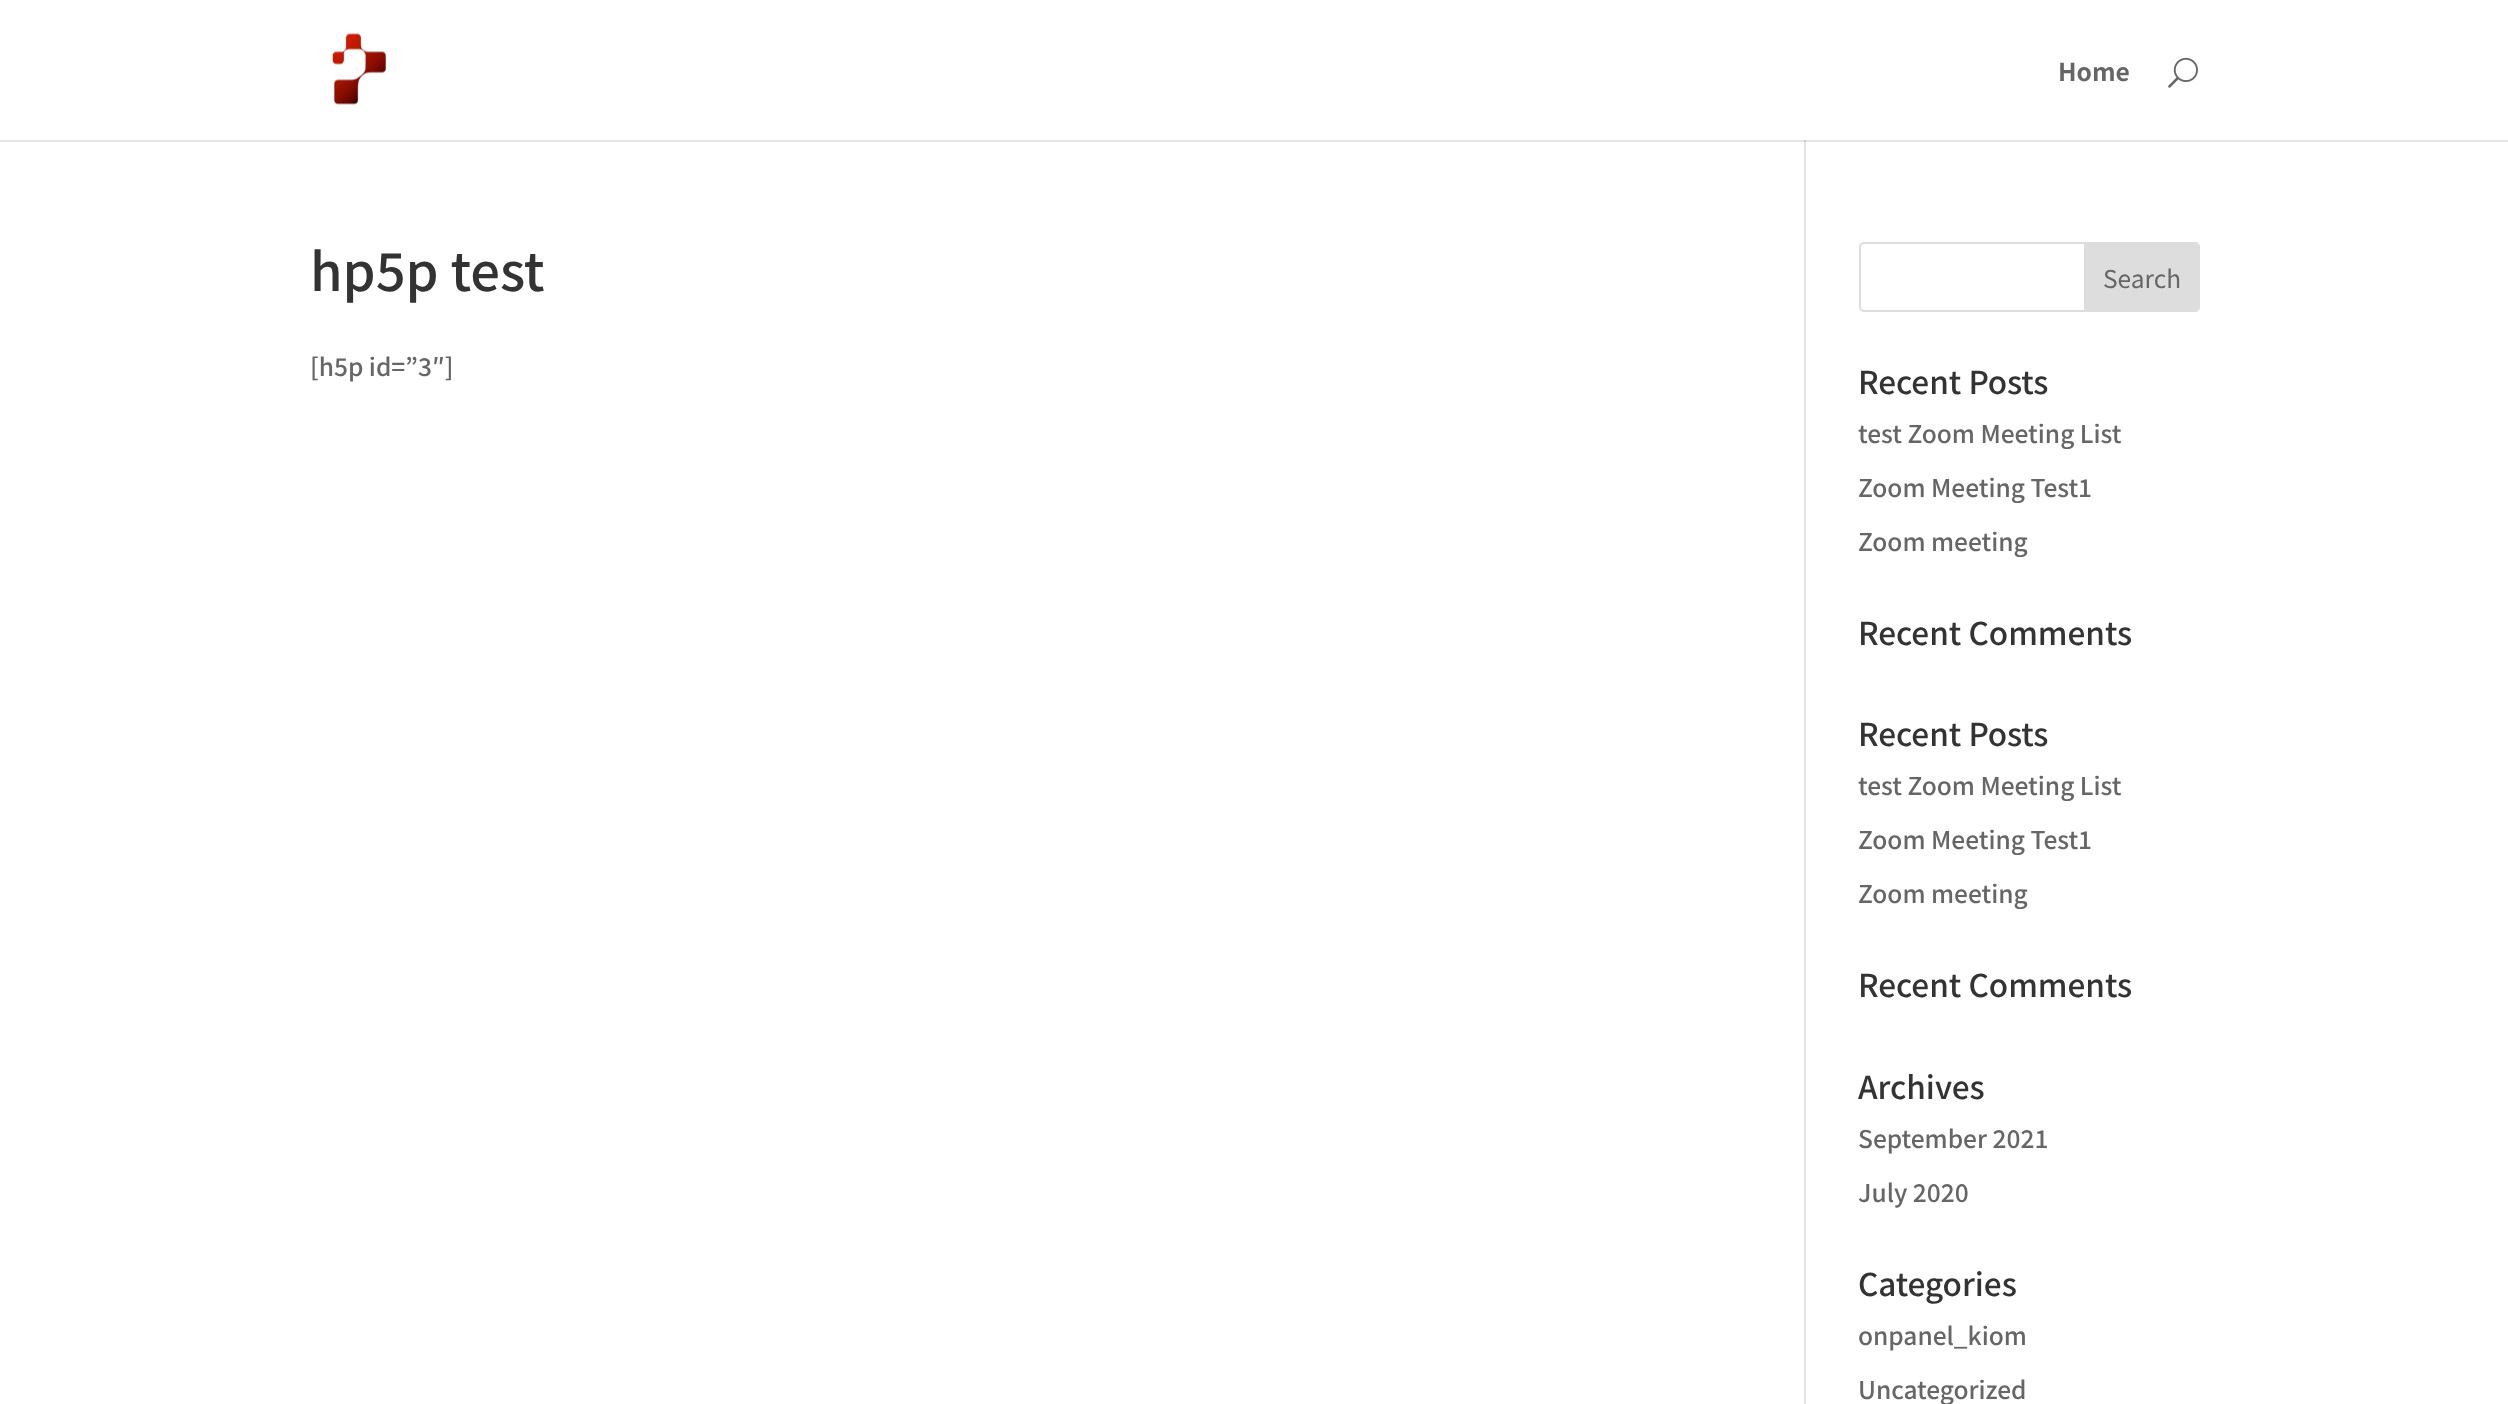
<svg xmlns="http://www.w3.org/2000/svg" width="2508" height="1404">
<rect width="100%" height="100%" fill="#fff"/>
<rect x="1804" y="140" width="2" height="1264" fill="#e2e2e2"/>
<path d="M0 140v2h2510v-140v138z" fill="#0000001a"/>
<image x="332" y="33" width="54" height="72" href="media/1.png"/>
<text x="2058" y="81" style="font-family:'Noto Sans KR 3';font-size:24.5px;font-weight:100;fill:#666">Home</text>
<image x="2168" y="57" width="30" height="31" href="media/2.png"/>
<text x="310" y="291" style="font-family:Noto Sans KR;font-size:52.5px;font-weight:100;fill:#333">hp5p test</text>
<text x="310" y="376" style="font-family:Noto Sans KR;font-size:24.5px;font-weight:100;fill:#666">[h5p id=”3″]</text>
<rect x="1860" y="243" width="339" height="68" rx="4" fill="none" stroke="#ddd" stroke-width="2"/>
<path d="M2085 243h110c2 0 4 2 4 4v60c0 2-2 4-4 4h-110z" fill="#ddd" stroke="#ddd" stroke-width="2"/>
<text x="2103" y="288" style="font-family:'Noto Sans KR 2';font-size:24.5px;font-weight:100;fill:#666">Search</text>
<text x="1858" y="394" style="font-family:Noto Sans KR;font-size:31.5px;font-weight:100;fill:#333">Recent Posts</text>
<text x="1858" y="443" style="font-family:Noto Sans KR;font-size:24.5px;font-weight:100;fill:#666">test Zoom Meeting List</text>
<text x="1858" y="497" style="font-family:Noto Sans KR;font-size:24.5px;font-weight:100;fill:#666">Zoom Meeting Test1</text>
<text x="1858" y="551" style="font-family:Noto Sans KR;font-size:24.5px;font-weight:100;fill:#666">Zoom meeting</text>
<text x="1858" y="645" style="font-family:Noto Sans KR;font-size:31.5px;font-weight:100;fill:#333">Recent Comments</text>
<text x="1858" y="746" style="font-family:Noto Sans KR;font-size:31.5px;font-weight:100;fill:#333">Recent Posts</text>
<text x="1858" y="795" style="font-family:Noto Sans KR;font-size:24.5px;font-weight:100;fill:#666">test Zoom Meeting List</text>
<text x="1858" y="849" style="font-family:Noto Sans KR;font-size:24.5px;font-weight:100;fill:#666">Zoom Meeting Test1</text>
<text x="1858" y="903" style="font-family:Noto Sans KR;font-size:24.5px;font-weight:100;fill:#666">Zoom meeting</text>
<text x="1858" y="997" style="font-family:Noto Sans KR;font-size:31.5px;font-weight:100;fill:#333">Recent Comments</text>
<text x="1858" y="1099" style="font-family:Noto Sans KR;font-size:31.5px;font-weight:100;fill:#333">Archives</text>
<text x="1858" y="1148" style="font-family:Noto Sans KR;font-size:24.5px;font-weight:100;fill:#666">September 2021</text>
<text x="1858" y="1202" style="font-family:Noto Sans KR;font-size:24.5px;font-weight:100;fill:#666">July 2020</text>
<text x="1858" y="1296" style="font-family:Noto Sans KR;font-size:31.5px;font-weight:100;fill:#333">Categories</text>
<text x="1858" y="1345" style="font-family:Noto Sans KR;font-size:24.5px;font-weight:100;fill:#666">onpanel_kiom</text>
<text x="1858" y="1399" style="font-family:Noto Sans KR;font-size:24.5px;font-weight:100;fill:#666">Uncategorized</text>
</svg>
